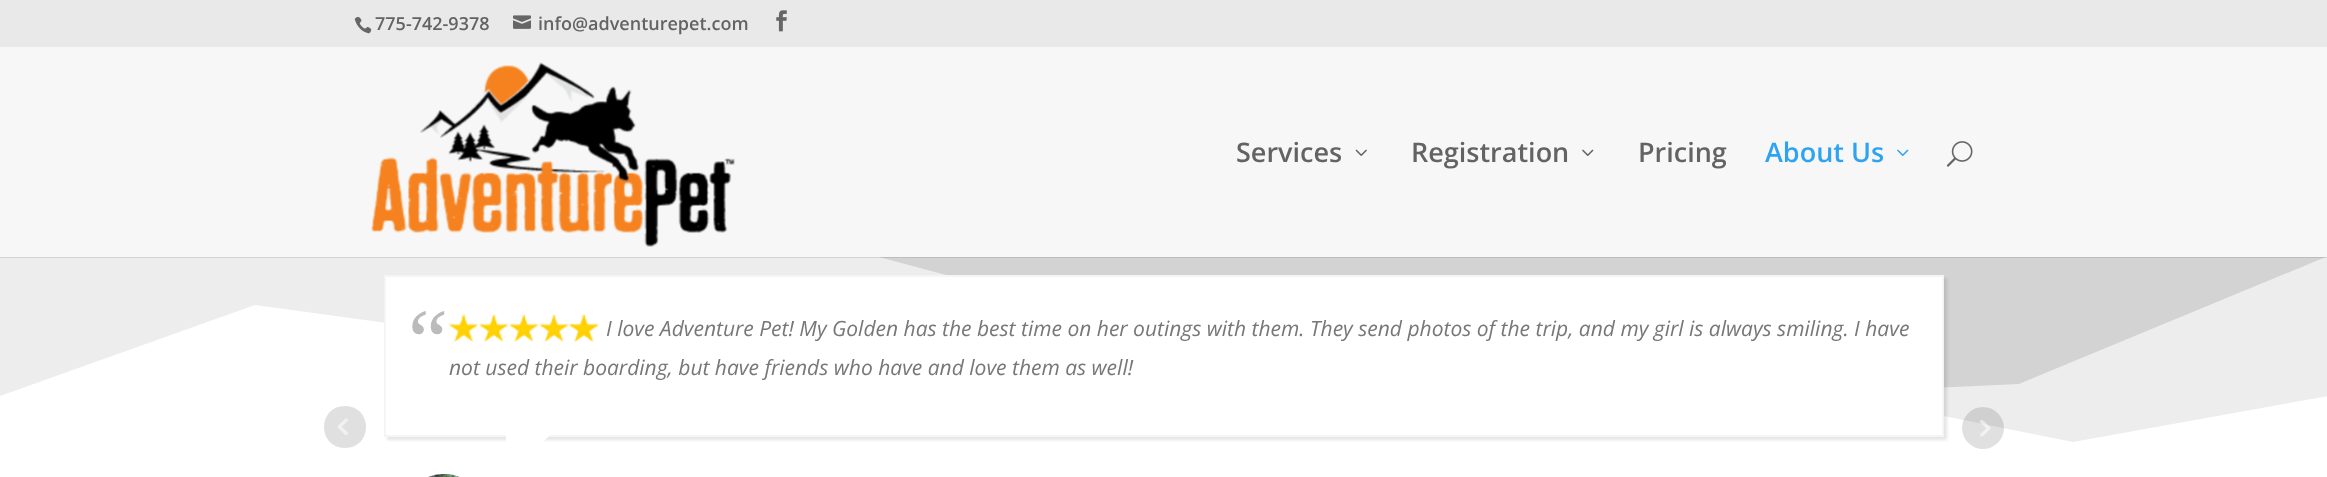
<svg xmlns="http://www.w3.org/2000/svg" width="2327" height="477">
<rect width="100%" height="100%" fill="#fff"/>
<rect width="2327" height="47" fill="#e9e9e9"/>
<image x="354" y="16" width="18" height="18" href="media/1.png"/>
<text x="375" y="30" style="font-family:Open Sans;font-size:18px;font-weight:600;fill:#636363">775-742-9378</text>
<image x="513" y="15" width="18" height="14" href="media/2.png"/>
<text x="538" y="30" style="font-family:Open Sans;font-size:18px;font-weight:600;fill:#636363">info@adventurepet.com</text>
<image x="776" y="10" width="11" height="22" href="media/3.png"/>
<path d="M0 396l255-91l573 78l621-67l624 126l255-46v-292h-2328z" fill="#ededed"/>
<path d="M0 104v152l309-152l1140 306l570-26l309-128v-152z" fill="#c1c1c199"/>
<rect y="257" width="2327" height="1" fill="#0000001a"/>
<rect y="47" width="2327" height="210" fill="#f7f7f7"/>
<image x="371" y="62" width="364" height="185" href="media/4.png"/>
<text x="1236" y="162" style="font-family:Open Sans;font-size:27px;font-weight:600;fill:#636363">Services</text>
<image x="1355" y="149" width="12" height="7" href="media/5.png"/>
<text x="1411" y="162" style="font-family:Open Sans;font-size:27px;font-weight:600;fill:#636363">Registration</text>
<image x="1582" y="149" width="12" height="7" href="media/6.png"/>
<text x="1638" y="162" style="font-family:Open Sans;font-size:27px;font-weight:600;fill:#636363">Pricing</text>
<text x="1765" y="162" style="font-family:Open Sans;font-size:27px;font-weight:600;fill:#2ea3f2">About Us</text>
<image x="1897" y="149" width="12" height="7" href="media/7.png"/>
<image x="1946" y="141" width="27" height="26" href="media/8.png"/>
<rect x="387" y="278" width="1560" height="162" fill="#0000001a" filter="blur(1.5px)"/>
<rect x="385" y="276" width="1558" height="160" fill="#fff" stroke="#f5f5f5" stroke-width="2"/>
<text x="408" y="371" style="font-family:Liberation Serif;font-size:90px;fill:#bbb">“</text>
<image x="448" y="313" width="151" height="29" href="media/9.png"/>
<text x="606" y="336" style="font-family:Open Sans;font-size:21px;font-style:italic;fill:#777">I love Adventure Pet! My Golden has the best time on her outings with them. They send photos of the trip, and my girl is always smiling. I have</text>
<text x="449" y="375" style="font-family:Open Sans;font-size:21px;font-style:italic;fill:#777">not used their boarding, but have friends who have and love them as well!</text>
<path d="M506 435h44l-44 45z" fill="#fff"/>
<image x="428" y="474" width="32" height="3" href="media/10.png"/>
<path d="M345 448c-28 0-28-42 0-42c28 0 28 42 0 42z" fill="#e0e0e0"/>
<image x="337" y="418" width="11" height="17" href="media/11.png"/>
<circle cx="1983" cy="428" r="21" fill="#0000001f"/>
<image x="1980" y="420" width="11" height="17" href="media/12.png"/>
</svg>
